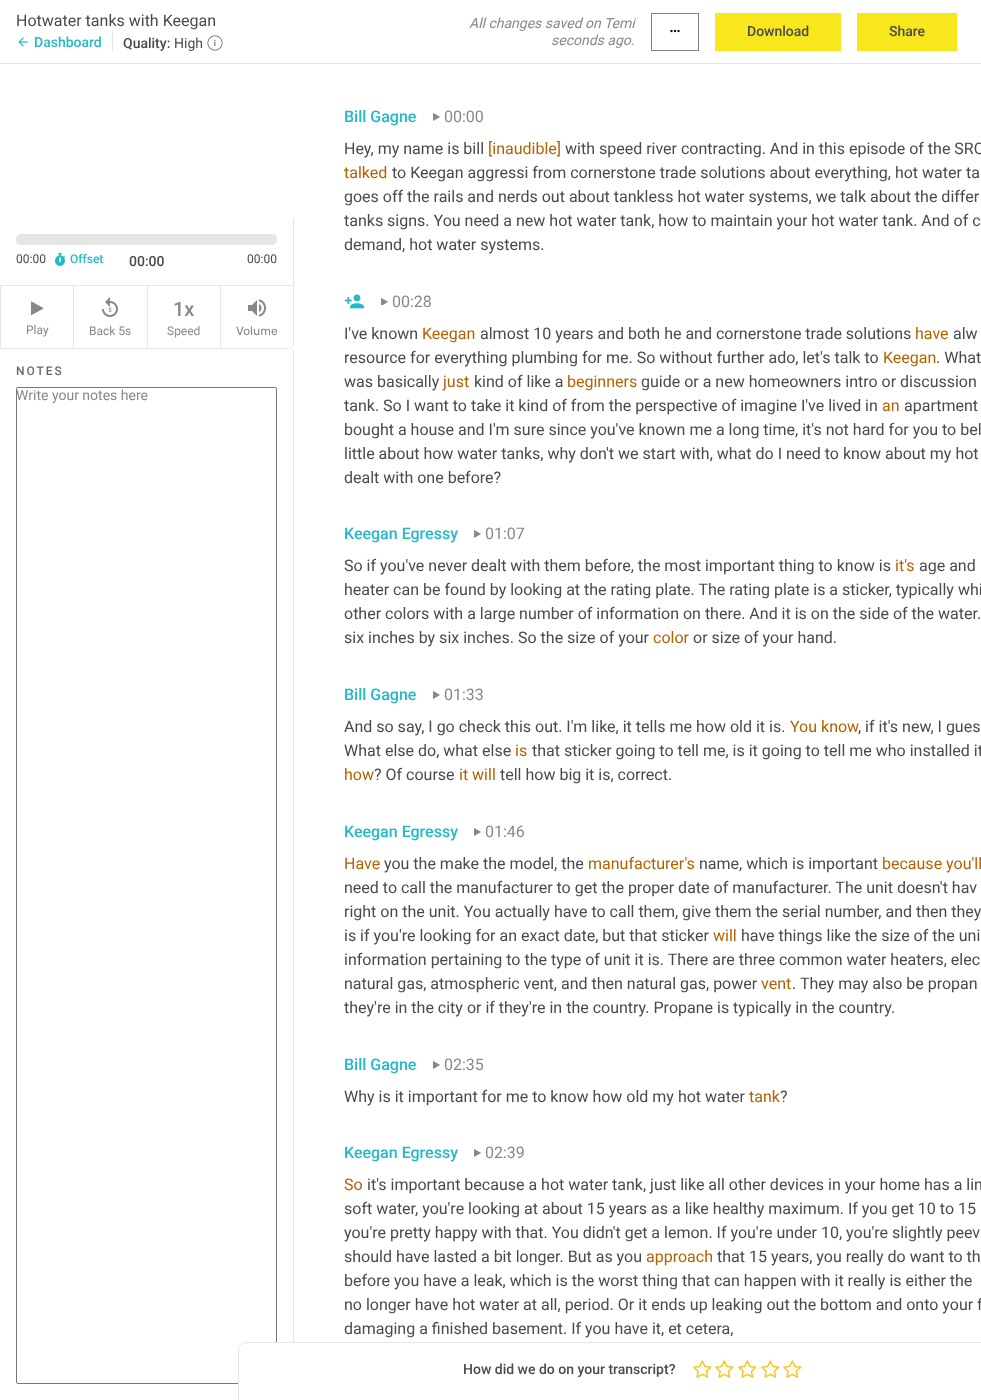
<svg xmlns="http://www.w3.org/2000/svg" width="981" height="1400">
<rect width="100%" height="100%" fill="#fff"/>
<rect y="63" width="981" height="1" fill="#e6e6e6"/>
<text x="16" y="26" style="font-family:Roboto;font-size:16px;fill:#4a4a4a">Hotwater tanks with Keegan</text>
<image x="18" y="37" width="10" height="10" href="media/1.png"/>
<text x="34" y="47" style="font-family:Roboto;font-size:14px;font-weight:500;fill:#25b9c8">Dashboard</text>
<rect x="112" y="31" width="1" height="20" fill="#e6e6e6"/>
<text x="123" y="48" style="font-family:Roboto;font-size:14px;font-weight:500;fill:#4a4a4a">Quality:</text>
<text x="174" y="48" style="font-family:Roboto;font-size:14px;fill:#4a4a4a">High</text>
<image x="207" y="35" width="16" height="16" href="media/2.png"/>
<text x="469" y="28" style="font-family:Roboto;font-size:14px;font-style:italic;fill:#888">All changes saved on Temi</text>
<text x="551" y="45" style="font-family:Roboto;font-size:14px;font-style:italic;fill:#888">seconds ago.</text>
<rect x="651.5" y="13.5" width="47" height="37" fill="none" stroke="#808080"/>
<image x="670" y="29" width="10" height="4" href="media/3.png"/>
<rect x="715" y="13" width="126" height="38" fill="#f8e71c"/>
<text x="747" y="36" style="font-family:Roboto;font-size:14px;font-weight:500;fill:#4a4a4a">Download</text>
<rect x="857" y="13" width="100" height="38" fill="#f8e71c"/>
<text x="889" y="36" style="font-family:Roboto;font-size:14px;font-weight:500;fill:#4a4a4a">Share</text>
<rect x="293" y="218" width="1" height="67" fill="#e6e6e6"/>
<rect x="16" y="234" width="261" height="11" rx="5" fill="#e6e6e6"/>
<text x="16" y="263" style="font-family:Roboto;font-size:12px;fill:#4a4a4a">00:00</text>
<image x="55" y="253" width="10" height="13" href="media/4.png"/>
<text x="70" y="263" style="font-family:Roboto;font-size:12px;font-weight:500;fill:#25b9c8">Offset</text>
<text x="129" y="266" style="font-family:Roboto;font-size:14px;font-weight:500;fill:#4a4a4a">00:00</text>
<text x="247" y="263" style="font-family:Roboto;font-size:12px;fill:#4a4a4a">00:00</text>
<rect x="0.5" y="285.5" width="73" height="63" fill="none" stroke="#e6e6e6"/>
<image x="31" y="301" width="13" height="15" href="media/5.png"/>
<text x="26" y="334" style="font-family:Roboto;font-size:12px;fill:#888">Play</text>
<rect x="74" y="285" width="147" height="1" fill="#e6e6e6"/>
<rect x="147" y="285" width="1" height="64" fill="#e6e6e6"/>
<rect x="74" y="348" width="74" height="1" fill="#e6e6e6"/>
<image x="102" y="297" width="16" height="20" href="media/6.png"/>
<text x="89" y="335" style="font-family:Roboto;font-size:12px;fill:#888">Back 5s</text>
<rect x="220" y="285" width="1" height="64" fill="#e6e6e6"/>
<rect x="148" y="348" width="73" height="1" fill="#e6e6e6"/>
<text x="173" y="316" style="font-family:Roboto;font-size:20px;font-weight:500;fill:#888">1x</text>
<text x="167" y="335" style="font-family:Roboto;font-size:12px;fill:#888">Speed</text>
<path d="M221 285h73v58c0 3-3 6-6 6h-67zm0 1h72v57c0 3-2 5-5 5h-67z" fill="#e6e6e6" fill-rule="evenodd"/>
<image x="248" y="299" width="18" height="18" href="media/7.png"/>
<text x="236" y="335" style="font-family:Rubik;font-size:12px;fill:#888">Volume</text>
<rect x="293" y="349" width="1" height="993" fill="#e6e6e6"/>
<text x="16" y="375" style="font-family:Roboto;font-size:12px;font-weight:500;letter-spacing:2px;fill:#6a6a6a">NOTES</text>
<rect x="16.5" y="387.5" width="260" height="996" rx="1.5" fill="none" stroke="#767676"/>
<text x="16" y="400" style="font-family:Roboto;font-size:14px;fill:#888">Write your notes here</text>
<text x="344" y="122" style="font-family:Roboto;font-size:16px;font-weight:500;fill:#25b9c8">Bill Gagne</text>
<image x="433" y="113" width="7" height="8" href="media/8.png"/>
<text x="444" y="122" style="font-family:Roboto;font-size:16px;fill:#888">00:00</text>
<text x="344" y="154" style="font-family:Roboto;font-size:16px;fill:#4a4a4a">Hey, my name is bill</text>
<text x="488" y="154" style="font-family:Roboto;font-size:16px;fill:#b46100">[inaudible]</text>
<text x="565" y="154" style="font-family:Roboto;font-size:16px;fill:#4a4a4a">with speed river contracting. And in this episode of the SRC</text>
<text x="344" y="178" style="font-family:Roboto;font-size:16px;fill:#b46100">talked</text>
<text x="392" y="178" style="font-family:Roboto;font-size:16px;fill:#4a4a4a">to Keegan aggressi from cornerstone trade solutions about everything, hot water ta</text>
<text x="344" y="202" style="font-family:Roboto;font-size:16px;fill:#4a4a4a">goes off the rails and nerds out about tankless hot water systems, we talk about the differ</text>
<text x="344" y="226" style="font-family:Roboto;font-size:16px;fill:#4a4a4a">tanks signs. You need a new hot water tank, how to maintain your hot water tank. And of c</text>
<text x="344" y="250" style="font-family:Roboto;font-size:16px;fill:#4a4a4a">demand, hot water systems.</text>
<image x="344" y="294" width="20" height="15" href="media/9.png"/>
<image x="381" y="298" width="7" height="7" href="media/10.png"/>
<text x="392" y="307" style="font-family:Roboto;font-size:16px;fill:#888">00:28</text>
<text x="344" y="339" style="font-family:Roboto;font-size:16px;fill:#4a4a4a">I've known</text>
<text x="422" y="339" style="font-family:Roboto;font-size:16px;fill:#b46100">Keegan</text>
<text x="480" y="339" style="font-family:Roboto;font-size:16px;fill:#4a4a4a">almost 10 years and both he and cornerstone trade solutions</text>
<text x="915" y="339" style="font-family:Roboto;font-size:16px;fill:#b46100">have</text>
<text x="953" y="339" style="font-family:Roboto;font-size:16px;fill:#4a4a4a">alw</text>
<text x="344" y="363" style="font-family:Roboto;font-size:16px;fill:#4a4a4a">resource for everything plumbing for me. So without further ado, let's talk to</text>
<text x="883" y="363" style="font-family:Roboto;font-size:16px;fill:#b46100">Keegan</text>
<text x="936" y="363" style="font-family:Roboto;font-size:16px;fill:#4a4a4a">. What</text>
<text x="344" y="387" style="font-family:Roboto;font-size:16px;fill:#4a4a4a">was basically</text>
<text x="443" y="387" style="font-family:Roboto;font-size:16px;fill:#b46100">just</text>
<text x="474" y="387" style="font-family:Roboto;font-size:16px;fill:#4a4a4a">kind of like a</text>
<text x="567" y="387" style="font-family:Roboto;font-size:16px;fill:#b46100">beginners</text>
<text x="641" y="387" style="font-family:Roboto;font-size:16px;fill:#4a4a4a">guide or a new homeowners intro or discussion</text>
<text x="344" y="411" style="font-family:Roboto;font-size:16px;fill:#4a4a4a">tank. So I want to take it kind of from the perspective of imagine I've lived in</text>
<text x="882" y="411" style="font-family:Roboto;font-size:16px;fill:#b46100">an</text>
<text x="904" y="411" style="font-family:Roboto;font-size:16px;fill:#4a4a4a">apartment</text>
<text x="344" y="435" style="font-family:Roboto;font-size:16px;fill:#4a4a4a">bought a house and I'm sure since you've known me a long time, it's not hard for you to bel</text>
<text x="344" y="459" style="font-family:Roboto;font-size:16px;fill:#4a4a4a">little about how water tanks, why don't we start with, what do I need to know about my hot</text>
<text x="344" y="483" style="font-family:Roboto;font-size:16px;fill:#4a4a4a">dealt with one before?</text>
<text x="344" y="539" style="font-family:Roboto;font-size:16px;font-weight:500;fill:#25b9c8">Keegan Egressy</text>
<image x="474" y="530" width="7" height="8" href="media/8.png"/>
<text x="485" y="539" style="font-family:Roboto;font-size:16px;fill:#888">01:07</text>
<text x="344" y="571" style="font-family:Roboto;font-size:16px;fill:#4a4a4a">So if you've never dealt with them before, the most important thing to know is</text>
<text x="895" y="571" style="font-family:Roboto;font-size:16px;fill:#b46100">it's</text>
<text x="919" y="571" style="font-family:Roboto;font-size:16px;fill:#4a4a4a">age and</text>
<text x="344" y="595" style="font-family:Roboto;font-size:16px;fill:#4a4a4a">heater can be found by looking at the rating plate. The rating plate is a sticker, typically whi</text>
<text x="344" y="619" style="font-family:Roboto;font-size:16px;fill:#4a4a4a">other colors with a large number of information on there. And it is on the side of the water.</text>
<text x="344" y="643" style="font-family:Roboto;font-size:16px;fill:#4a4a4a">six inches by six inches. So the size of your</text>
<text x="653" y="643" style="font-family:Roboto;font-size:16px;fill:#b46100">color</text>
<text x="693" y="643" style="font-family:Roboto;font-size:16px;fill:#4a4a4a">or size of your hand.</text>
<text x="344" y="700" style="font-family:Roboto;font-size:16px;font-weight:500;fill:#25b9c8">Bill Gagne</text>
<image x="433" y="691" width="7" height="8" href="media/8.png"/>
<text x="444" y="700" style="font-family:Roboto;font-size:16px;fill:#888">01:33</text>
<text x="344" y="732" style="font-family:Roboto;font-size:16px;fill:#4a4a4a">And so say, I go check this out. I'm like, it tells me how old it is.</text>
<text x="790" y="732" style="font-family:Roboto;font-size:16px;fill:#b46100">You know</text>
<text x="858" y="732" style="font-family:Roboto;font-size:16px;fill:#4a4a4a">, if it's new, I gues</text>
<text x="344" y="756" style="font-family:Roboto;font-size:16px;fill:#4a4a4a">What else do, what else</text>
<text x="515" y="756" style="font-family:Roboto;font-size:16px;fill:#b46100">is</text>
<text x="532" y="756" style="font-family:Roboto;font-size:16px;fill:#4a4a4a">that sticker going to tell me, is it going to tell me who installed it</text>
<text x="344" y="780" style="font-family:Roboto;font-size:16px;fill:#b46100">how</text>
<text x="374" y="780" style="font-family:Roboto;font-size:16px;fill:#4a4a4a">? Of course</text>
<text x="459" y="780" style="font-family:Roboto;font-size:16px;fill:#b46100">it will</text>
<text x="500" y="780" style="font-family:Roboto;font-size:16px;fill:#4a4a4a">tell how big it is, correct.</text>
<text x="344" y="837" style="font-family:Roboto;font-size:16px;font-weight:500;fill:#25b9c8">Keegan Egressy</text>
<image x="474" y="828" width="7" height="8" href="media/8.png"/>
<text x="485" y="837" style="font-family:Roboto;font-size:16px;fill:#888">01:46</text>
<text x="344" y="869" style="font-family:Roboto;font-size:16px;fill:#b46100">Have</text>
<text x="384" y="869" style="font-family:Roboto;font-size:16px;fill:#4a4a4a">you the make the model, the</text>
<text x="588" y="869" style="font-family:Roboto;font-size:16px;fill:#b46100">manufacturer's</text>
<text x="699" y="869" style="font-family:Roboto;font-size:16px;fill:#4a4a4a">name, which is important</text>
<text x="882" y="869" style="font-family:Roboto;font-size:16px;fill:#b46100">because you'll</text>
<text x="344" y="893" style="font-family:Roboto;font-size:16px;fill:#4a4a4a">need to call the manufacturer to get the proper date of manufacturer. The unit doesn't hav</text>
<text x="344" y="917" style="font-family:Roboto;font-size:16px;fill:#4a4a4a">right on the unit. You actually have to call them, give them the serial number, and then they</text>
<text x="344" y="941" style="font-family:Roboto;font-size:16px;fill:#4a4a4a">is if you're looking for an exact date, but that sticker</text>
<text x="713" y="941" style="font-family:Roboto;font-size:16px;fill:#b46100">will</text>
<text x="741" y="941" style="font-family:Roboto;font-size:16px;fill:#4a4a4a">have things like the size of the uni</text>
<text x="344" y="965" style="font-family:Roboto;font-size:16px;fill:#4a4a4a">information pertaining to the type of unit it is. There are three common water heaters, elec</text>
<text x="344" y="989" style="font-family:Roboto;font-size:16px;fill:#4a4a4a">natural gas, atmospheric vent, and then natural gas, power</text>
<text x="761" y="989" style="font-family:Roboto;font-size:16px;fill:#b46100">vent</text>
<text x="792" y="989" style="font-family:Roboto;font-size:16px;fill:#4a4a4a">. They may also be propan</text>
<text x="344" y="1013" style="font-family:Roboto;font-size:16px;fill:#4a4a4a">they're in the city or if they're in the country. Propane is typically in the country.</text>
<text x="344" y="1070" style="font-family:Roboto;font-size:16px;font-weight:500;fill:#25b9c8">Bill Gagne</text>
<image x="433" y="1061" width="7" height="8" href="media/8.png"/>
<text x="444" y="1070" style="font-family:Roboto;font-size:16px;fill:#888">02:35</text>
<text x="344" y="1102" style="font-family:Roboto;font-size:16px;fill:#4a4a4a">Why is it important for me to know how old my hot water</text>
<text x="749" y="1102" style="font-family:Roboto;font-size:16px;fill:#b46100">tank</text>
<text x="780" y="1102" style="font-family:Roboto;font-size:16px;fill:#4a4a4a">?</text>
<text x="344" y="1158" style="font-family:Roboto;font-size:16px;font-weight:500;fill:#25b9c8">Keegan Egressy</text>
<image x="474" y="1149" width="7" height="8" href="media/8.png"/>
<text x="485" y="1158" style="font-family:Roboto;font-size:16px;fill:#888">02:39</text>
<text x="344" y="1190" style="font-family:Roboto;font-size:16px;fill:#b46100">So</text>
<text x="367" y="1190" style="font-family:Roboto;font-size:16px;fill:#4a4a4a">it's important because a hot water tank, just like all other devices in your home has a lim</text>
<text x="344" y="1214" style="font-family:Roboto;font-size:16px;fill:#4a4a4a">soft water, you're looking at about 15 years as a like healthy maximum. If you get 10 to 15</text>
<text x="344" y="1238" style="font-family:Roboto;font-size:16px;fill:#4a4a4a">you're pretty happy with that. You didn't get a lemon. If you're under 10, you're slightly peev</text>
<text x="344" y="1262" style="font-family:Roboto;font-size:16px;fill:#4a4a4a">should have lasted a bit longer. But as you</text>
<text x="646" y="1262" style="font-family:Roboto;font-size:16px;fill:#b46100">approach</text>
<text x="717" y="1262" style="font-family:Roboto;font-size:16px;fill:#4a4a4a">that 15 years, you really do want to th</text>
<text x="344" y="1286" style="font-family:Roboto;font-size:16px;fill:#4a4a4a">before you have a leak, which is the worst thing that can happen with it really is either the</text>
<text x="344" y="1310" style="font-family:Roboto;font-size:16px;fill:#4a4a4a">no longer have hot water at all, period. Or it ends up leaking out the bottom and onto your f</text>
<text x="344" y="1334" style="font-family:Roboto;font-size:16px;fill:#4a4a4a">damaging a finished basement. If you have it, et cetera,</text>
<path d="M246 1343h735c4 0 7 3 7 7v50h-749v-50c0-4 3-7 7-7z" fill="#fff"/>
<path d="M246 1342h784c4 0 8 4 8 8v50h-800v-50c0-4 4-8 8-8zm0 1h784c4 0 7 3 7 7v50h-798v-50c0-4 3-7 7-7z" fill="#e6e6e6" fill-rule="evenodd"/>
<text x="463" y="1374" style="font-family:Roboto;font-size:14px;font-weight:500;fill:#4a4a4a">How did we do on your transcript?</text>
<image x="693" y="1360" width="19" height="18" href="media/11.png"/>
<image x="715" y="1360" width="19" height="18" href="media/11.png"/>
<image x="738" y="1360" width="19" height="18" href="media/11.png"/>
<image x="761" y="1360" width="19" height="18" href="media/11.png"/>
<image x="783" y="1360" width="19" height="18" href="media/11.png"/>
</svg>
